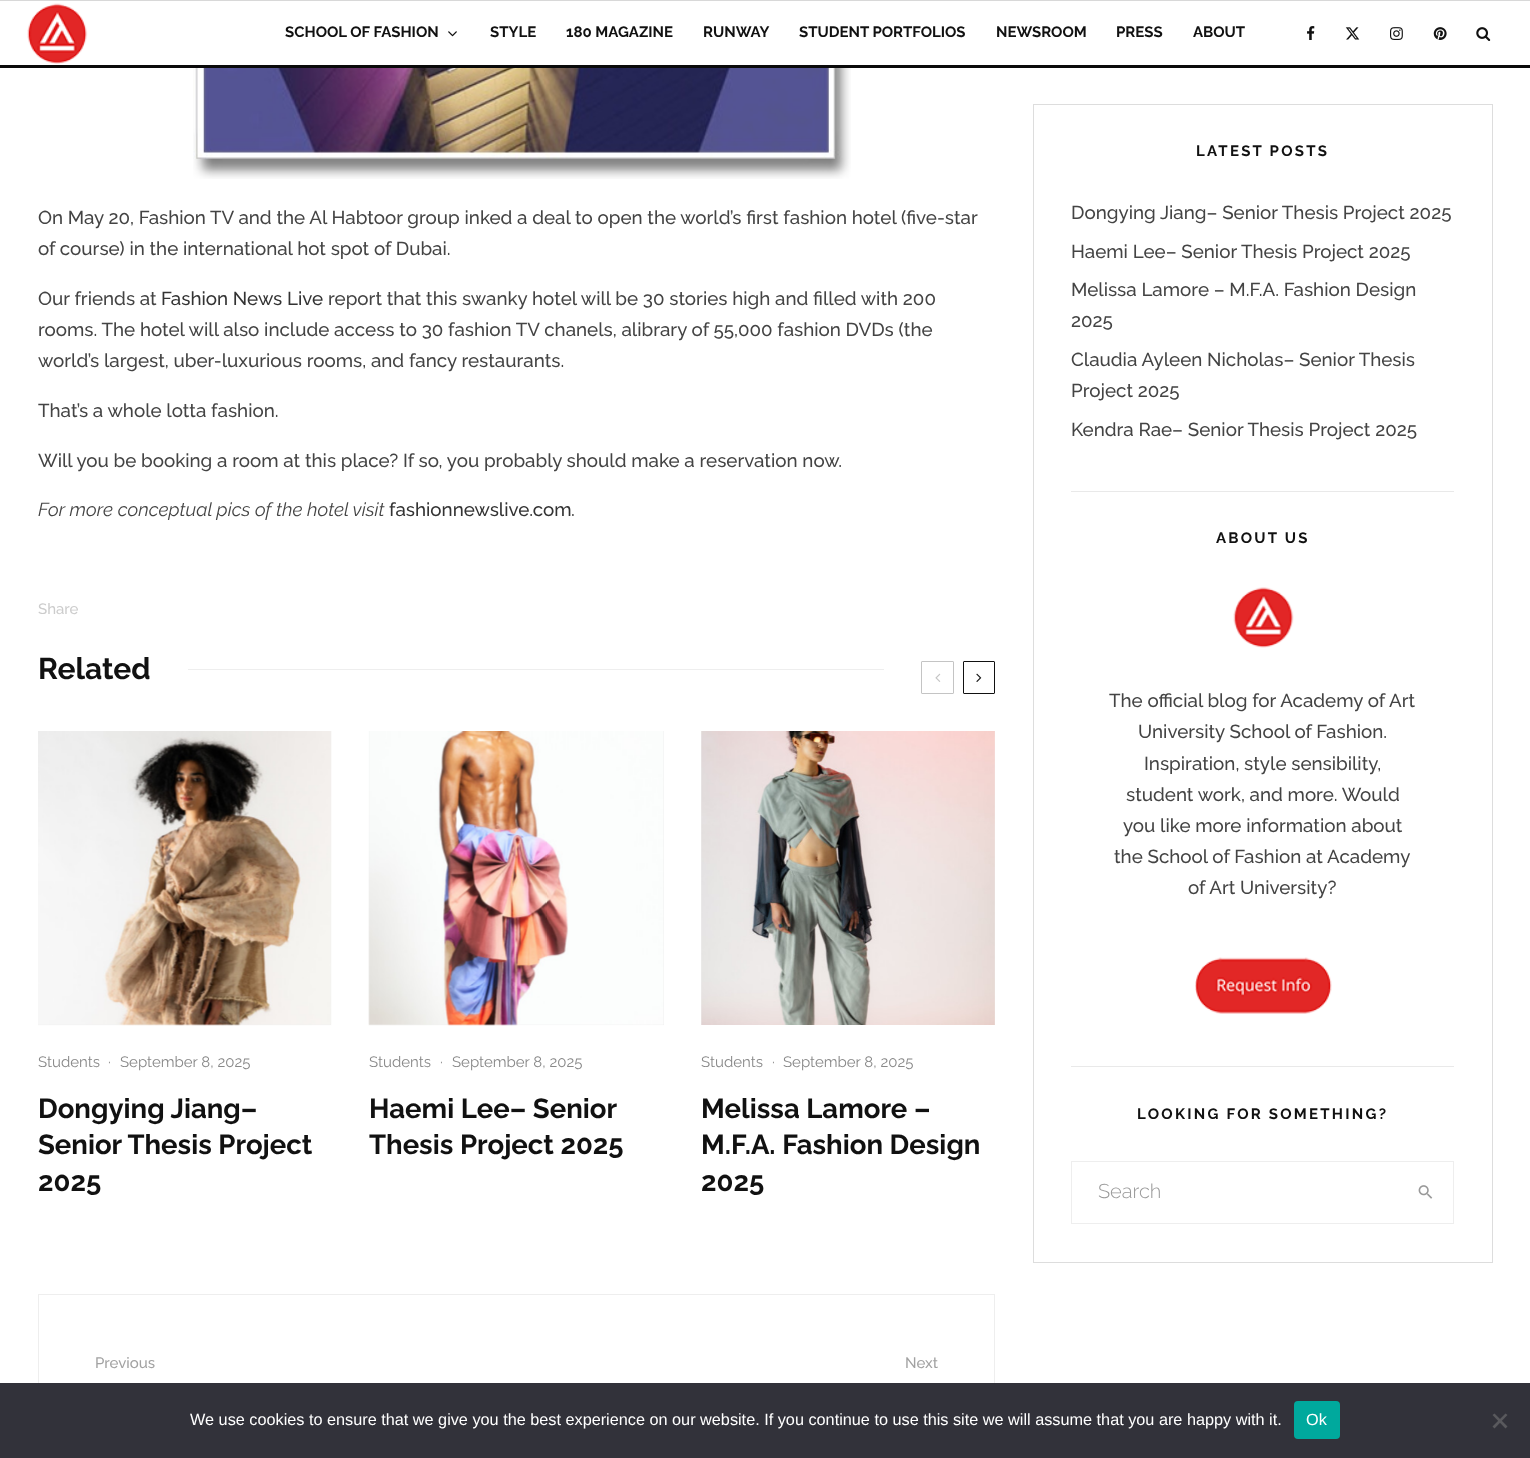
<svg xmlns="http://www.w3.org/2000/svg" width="1530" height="1458">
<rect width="100%" height="100%" fill="#fff"/>
<rect width="1530" height="1" fill="#d8d8d8"/>
<rect y="65" width="1530" height="3" fill="#0a0a0a"/>
<image x="27" y="3" width="61" height="61" href="media/1.png"/>
<text x="285" y="37" style="font-family:Raleway;font-size:15px;font-weight:bold;fill:#111">SCHOOL OF FASHION</text>
<image x="448" y="31" width="9" height="6" href="media/2.png"/>
<text x="490" y="37" style="font-family:Raleway;font-size:15px;font-weight:bold;fill:#111">STYLE</text>
<text x="566" y="37" style="font-family:Raleway;font-size:15px;font-weight:bold;fill:#111">180 MAGAZINE</text>
<text x="703" y="37" style="font-family:Raleway;font-size:15px;font-weight:bold;fill:#111">RUNWAY</text>
<text x="799" y="37" style="font-family:Raleway;font-size:15px;font-weight:bold;fill:#111">STUDENT PORTFOLIOS</text>
<text x="996" y="37" style="font-family:Raleway;font-size:15px;font-weight:bold;fill:#111">NEWSROOM</text>
<text x="1116" y="37" style="font-family:Raleway;font-size:15px;font-weight:bold;fill:#111">PRESS</text>
<text x="1193" y="37" style="font-family:Raleway;font-size:15px;font-weight:bold;fill:#111">ABOUT</text>
<image x="1307" y="26" width="8" height="14" href="media/3.png"/>
<image x="1345" y="27" width="15" height="13" href="media/4.png"/>
<image x="1390" y="27" width="13" height="13" href="media/5.png"/>
<image x="1433" y="27" width="14" height="13" href="media/6.png"/>
<image x="1476" y="27" width="15" height="14" href="media/7.png"/>
<image x="193" y="68" width="658" height="111" href="media/8.png"/>
<text x="38" y="224" style="font-family:Raleway;font-size:18.75px;font-weight:500;fill:#444">On May 20, Fashion TV and the Al Habtoor group inked a deal to open the world’s first fashion hotel (five-star</text>
<text x="38" y="255" style="font-family:Raleway;font-size:18.75px;font-weight:500;fill:#444">of course) in the international hot spot of Dubai.</text>
<text x="38" y="305" style="font-family:Raleway;font-size:18.75px;font-weight:500;fill:#444">Our friends at</text>
<text x="161" y="305" style="font-family:Raleway;font-size:18.75px;font-weight:500;fill:#333">Fashion News Live</text>
<text x="328" y="305" style="font-family:Raleway;font-size:18.75px;font-weight:500;fill:#444">report that this swanky hotel will be 30 stories high and filled with 200</text>
<text x="38" y="336" style="font-family:Raleway;font-size:18.75px;font-weight:500;fill:#444">rooms. The hotel will also include access to 30 fashion TV chanels, alibrary of 55,000 fashion DVDs (the</text>
<text x="38" y="367" style="font-family:Raleway;font-size:18.75px;font-weight:500;fill:#444">world’s largest, uber-luxurious rooms, and fancy restaurants.</text>
<text x="38" y="417" style="font-family:Raleway;font-size:18.75px;font-weight:500;fill:#444">That’s a whole lotta fashion.</text>
<text x="38" y="467" style="font-family:Raleway;font-size:18.75px;font-weight:500;fill:#444">Will you be booking a room at this place? If so, you probably should make a reservation now.</text>
<text x="38" y="516" style="font-family:Raleway;font-size:18.75px;font-weight:100;font-style:italic;fill:#444">For more conceptual pics of the hotel visit</text>
<text x="389" y="516" style="font-family:Raleway;font-size:18.75px;font-weight:500;fill:#333">fashionnewslive.com</text>
<text x="571" y="516" style="font-family:Raleway;font-size:18.75px;font-weight:500;fill:#444">.</text>
<text x="38" y="614" style="font-family:Raleway;font-size:15px;font-weight:500;fill:#ccc">Share</text>
<text x="38" y="679" style="font-family:Raleway;font-size:30px;font-weight:bold;fill:#111">Related</text>
<rect x="188" y="669" width="696" height="1" fill="#eee"/>
<rect x="921.5" y="661.5" width="32" height="32" rx="0.5" fill="none" stroke="#c4c4c4"/>
<image x="935" y="673" width="6" height="9" href="media/9.png"/>
<rect x="963.5" y="661.5" width="31" height="32" rx="0.5" fill="none" stroke="#111"/>
<image x="976" y="673" width="6" height="9" href="media/10.png"/>
<rect x="38" y="731" width="293" height="294" fill="#eee"/>
<image x="38" y="731" width="294" height="295" href="media/11.png"/>
<text x="38" y="1067" style="font-family:Raleway;font-size:15px;fill:#888">Students</text>
<text x="108" y="1067" style="font-family:Raleway;font-size:15px;fill:#888">·</text>
<text x="120" y="1067" style="font-family:Raleway;font-size:15px;fill:#888">September 8, 2025</text>
<text x="38" y="1118" style="font-family:Raleway;font-size:27.5px;font-weight:bold;fill:#111">Dongying Jiang–</text>
<text x="38" y="1154" style="font-family:Raleway;font-size:27.5px;font-weight:bold;fill:#111">Senior Thesis Project</text>
<text x="38" y="1191" style="font-family:Raleway;font-size:27.5px;font-weight:bold;fill:#111">2025</text>
<rect x="369" y="731" width="295" height="294" fill="#eee"/>
<image x="368" y="731" width="296" height="295" href="media/12.png"/>
<text x="369" y="1067" style="font-family:Raleway;font-size:15px;fill:#888">Students</text>
<text x="440" y="1067" style="font-family:Raleway;font-size:15px;fill:#888">·</text>
<text x="452" y="1067" style="font-family:Raleway;font-size:15px;fill:#888">September 8, 2025</text>
<text x="369" y="1118" style="font-family:Raleway;font-size:27.5px;font-weight:bold;fill:#111">Haemi Lee– Senior</text>
<text x="369" y="1154" style="font-family:Raleway;font-size:27.5px;font-weight:bold;fill:#111">Thesis Project 2025</text>
<rect x="701" y="731" width="294" height="294" fill="#eee"/>
<image x="701" y="731" width="294" height="294" href="media/13.png"/>
<text x="701" y="1067" style="font-family:Raleway;font-size:15px;fill:#888">Students</text>
<text x="772" y="1067" style="font-family:Raleway;font-size:15px;fill:#888">·</text>
<text x="783" y="1067" style="font-family:Raleway;font-size:15px;fill:#888">September 8, 2025</text>
<text x="701" y="1118" style="font-family:Raleway;font-size:27.5px;font-weight:bold;fill:#111">Melissa Lamore –</text>
<text x="701" y="1154" style="font-family:Raleway;font-size:27.5px;font-weight:bold;fill:#111">M.F.A. Fashion Design</text>
<text x="701" y="1191" style="font-family:Raleway;font-size:27.5px;font-weight:bold;fill:#111">2025</text>
<rect x="38.5" y="1294.5" width="956" height="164" fill="none" stroke="#eee"/>
<text x="95" y="1368" style="font-family:Raleway;font-size:15px;font-weight:500;fill:#a2a2a2">Previous</text>
<text x="905" y="1368" style="font-family:Raleway;font-size:15px;font-weight:500;fill:#a2a2a2">Next</text>
<rect x="1033.5" y="104.5" width="459" height="1158" fill="none" stroke="#ddd"/>
<rect x="1071" y="491" width="383" height="1" fill="#e9e9e9"/>
<text x="1196" y="156" style="font-family:Raleway;font-size:15px;font-weight:bold;letter-spacing:2.25px;fill:#111">LATEST POSTS</text>
<text x="1071" y="219" style="font-family:Raleway;font-size:18.75px;font-weight:500;fill:#444">Dongying Jiang– Senior Thesis Project 2025</text>
<text x="1071" y="258" style="font-family:Raleway;font-size:18.75px;font-weight:500;fill:#444">Haemi Lee– Senior Thesis Project 2025</text>
<text x="1071" y="296" style="font-family:Raleway;font-size:18.75px;font-weight:500;fill:#444">Melissa Lamore – M.F.A. Fashion Design</text>
<text x="1071" y="327" style="font-family:Raleway;font-size:18.75px;font-weight:500;fill:#444">2025</text>
<text x="1071" y="366" style="font-family:Raleway;font-size:18.75px;font-weight:500;fill:#444">Claudia Ayleen Nicholas– Senior Thesis</text>
<text x="1071" y="397" style="font-family:Raleway;font-size:18.75px;font-weight:500;fill:#444">Project 2025</text>
<text x="1071" y="436" style="font-family:Raleway;font-size:18.75px;font-weight:500;fill:#444">Kendra Rae– Senior Thesis Project 2025</text>
<rect x="1071" y="1066" width="383" height="1" fill="#e9e9e9"/>
<text x="1216" y="543" style="font-family:Raleway;font-size:15px;font-weight:bold;letter-spacing:2.25px;fill:#111">ABOUT US</text>
<image x="1233" y="587" width="61" height="61" href="media/14.png"/>
<text x="1109" y="707" style="font-family:Raleway;font-size:18.75px;font-weight:500;fill:#444">The official blog for Academy of Art</text>
<text x="1138" y="738" style="font-family:Raleway;font-size:18.75px;font-weight:500;fill:#444">University School of Fashion.</text>
<text x="1144" y="770" style="font-family:Raleway;font-size:18.75px;font-weight:500;fill:#444">Inspiration, style sensibility,</text>
<text x="1126" y="801" style="font-family:Raleway;font-size:18.75px;font-weight:500;fill:#444">student work, and more. Would</text>
<text x="1123" y="832" style="font-family:Raleway;font-size:18.75px;font-weight:500;fill:#444">you like more information about</text>
<text x="1114" y="863" style="font-family:Raleway;font-size:18.75px;font-weight:500;fill:#444">the School of Fashion at Academy</text>
<text x="1188" y="894" style="font-family:Raleway;font-size:18.75px;font-weight:500;fill:#444">of Art University?</text>
<image x="1195" y="957" width="137" height="57" href="media/15.png"/>
<text x="1137" y="1119" style="font-family:Raleway;font-size:15px;font-weight:bold;letter-spacing:2.25px;fill:#111">LOOKING FOR SOMETHING?</text>
<rect x="1071.5" y="1161.5" width="382" height="62" fill="none" stroke="#eee"/>
<text x="1098" y="1198" style="font-family:Raleway;font-size:20px;font-weight:300;fill:#999">Search</text>
<image x="1418" y="1185" width="15" height="14" href="media/16.png"/>
<rect y="1383" width="1530" height="75" fill="#32323a"/>
<text x="190" y="1425" style="font-family:Liberation Sans;font-size:16.25px;fill:#fff">We use cookies to ensure that we give you the best experience on our website. If you continue to use this site we will assume that you are happy with it.</text>
<rect x="1294" y="1401" width="46" height="38" rx="4" fill="#00a99d"/>
<text x="1306" y="1425" style="font-family:Liberation Sans;font-size:16.25px;fill:#fff">Ok</text>
<path d="M1505.5 1413.5l2 1.5l-13 13.5l-2-2z" fill="#59595d"/>
<path d="M1492.5 1415l2-1.5l13 13l-2 2z" fill="#59595d"/>
</svg>
